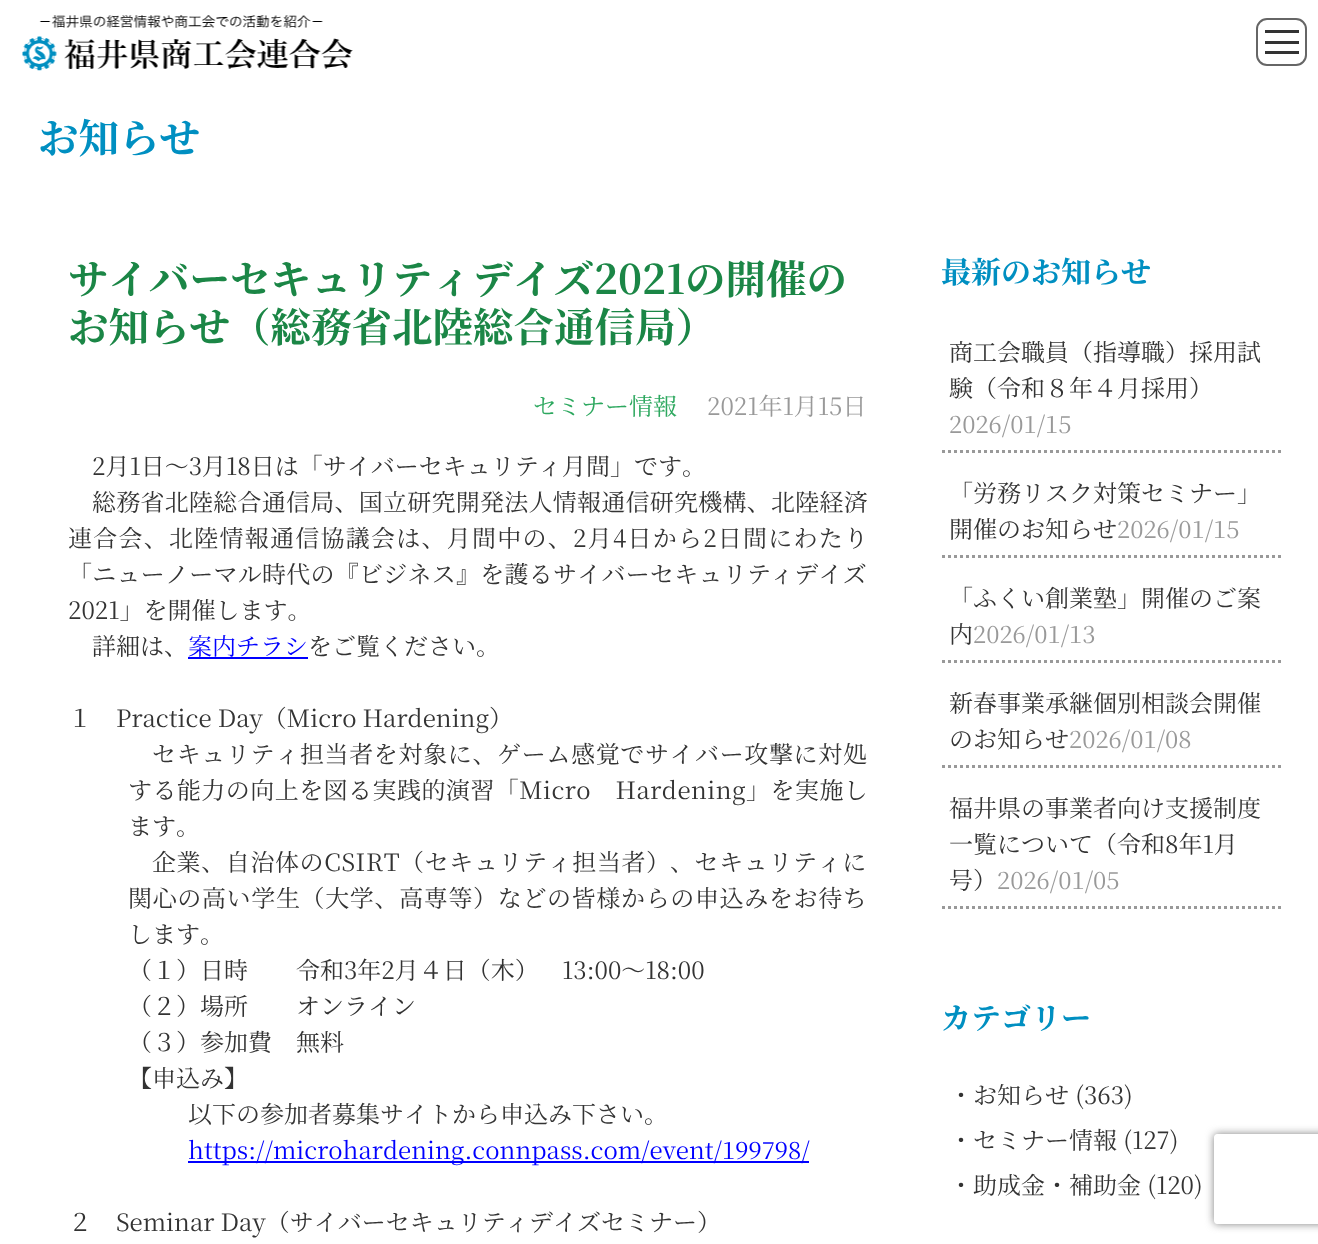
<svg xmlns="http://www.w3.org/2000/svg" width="1318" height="1244">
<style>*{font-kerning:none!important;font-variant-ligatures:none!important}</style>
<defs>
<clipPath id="clip1"><path d="M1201 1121h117v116h-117zm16 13h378c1.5 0 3 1.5 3 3v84c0 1.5-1.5 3-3 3h-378c-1.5 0-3-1.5-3-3v-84c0-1.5 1.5-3 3-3z" clip-rule="evenodd"/></clipPath>
</defs>
<rect width="100%" height="100%" fill="#fff"/>
<image x="22" y="15" width="331" height="56" href="media/1.png"/>
<rect x="1257" y="19" width="49" height="46" rx="10" fill="none" stroke="#666" stroke-width="2"/>
<rect x="1265" y="30" width="34" height="3" fill="#333"/>
<rect x="1265" y="41" width="34" height="3" fill="#333"/>
<rect x="1265" y="51" width="34" height="3" fill="#333"/>
<text x="38" y="153" style="font-family:Noto Serif JP;font-size:40.5px;font-weight:bold;fill:#008fc1">お知らせ</text>
<text x="68" y="294" style="font-family:Noto Serif JP;font-size:40.5px;font-weight:bold;fill:#1b8646">サイバーセキュリテ</text>
<text x="432" y="294" style="font-family:Noto Serif JP;font-size:40.5px;font-weight:bold;fill:#1b8646">ィデイズ2021の開催の</text>
<text x="68" y="342" style="font-family:Noto Serif JP;font-size:40.5px;font-weight:bold;fill:#1b8646">お知らせ（総務省北陸総合通信局）</text>
<text x="533" y="415" style="font-family:Noto Serif JP;font-size:24px;fill:#2da85f">セミナー情報</text>
<text x="707" y="415" style="font-family:Noto Serif JP;font-size:24px;fill:#999">2021年1月15日</text>
<text x="92" y="475" style="font-family:Noto Serif JP;font-size:24px;fill:#333">2月1日～3月18日は「サイバーセキュリテ</text>
<text x="538" y="475" style="font-family:Noto Serif JP;font-size:24px;fill:#333">ィ月間」です。</text>
<text x="92" y="511" style="font-family:Noto Serif JP;font-size:24px;letter-spacing:0.25px;fill:#333">総務省北陸総合通信局、国立研究開発法人情報通信研究機構、北陸経済</text>
<text x="68" y="547" style="font-family:Noto Serif JP;font-size:24px;letter-spacing:1.25px;fill:#333">連合会、北陸情報通信協議会は、月間中の、2月4日から2日間にわたり</text>
<text x="68" y="583" style="font-family:Noto Serif JP;font-size:24px;letter-spacing:0.25px;fill:#333">「ニューノーマル時代の『ビジネス』を護るサイバーセキュリテ</text>
<text x="770" y="583" style="font-family:Noto Serif JP;font-size:24px;letter-spacing:0.25px;fill:#333">ィデイズ</text>
<text x="68" y="619" style="font-family:Noto Serif JP;font-size:24px;fill:#333">2021」を開催します。</text>
<text x="92" y="655" style="font-family:Noto Serif JP;font-size:24px;fill:#333">詳細は、</text>
<text x="188" y="655" style="font-family:Noto Serif JP;font-size:24px;fill:#00f">案内チラシ</text>
<rect x="188" y="657" width="120" height="2" fill="#00f"/>
<text x="308" y="655" style="font-family:Noto Serif JP;font-size:24px;fill:#333">をご覧ください。</text>
<text x="68" y="727" style="font-family:Noto Serif JP;font-size:24px;fill:#333">１　Practice Day（Micro Hardening）</text>
<text x="152" y="763" style="font-family:Noto Serif JP;font-size:24px;letter-spacing:0.65px;fill:#333">セキュリティ担当者を対象に、ゲーム感覚でサイ</text>
<text x="695" y="763" style="font-family:Noto Serif JP;font-size:24px;letter-spacing:0.65px;fill:#333">バー攻撃に対処</text>
<text x="128" y="799" style="font-family:Noto Serif JP;font-size:24px;letter-spacing:0.45px;fill:#333">する能力の向上を図る実践的演習「Micro　Hardening」を実施し</text>
<text x="128" y="835" style="font-family:Noto Serif JP;font-size:24px;fill:#333">ます。</text>
<text x="152" y="871" style="font-family:Noto Serif JP;font-size:24px;letter-spacing:0.6px;fill:#333">企業、自治体のCSIRT（セキュリティ担当者）</text>
<text x="670" y="871" style="font-family:Noto Serif JP;font-size:24px;letter-spacing:0.6px;fill:#333">、セキュリティに</text>
<text x="128" y="907" style="font-family:Noto Serif JP;font-size:24px;letter-spacing:0.65px;fill:#333">関心の高い学生（大学、高専等）などの皆様からの申込みをお待ち</text>
<text x="128" y="943" style="font-family:Noto Serif JP;font-size:24px;fill:#333">します。</text>
<text x="128" y="979" style="font-family:Noto Serif JP;font-size:24px;fill:#333">（１）日時　　令和3年2月４日（木）</text>
<text x="538" y="979" style="font-family:Noto Serif JP;font-size:24px;fill:#333">　13:00～18:00</text>
<text x="128" y="1015" style="font-family:Noto Serif JP;font-size:24px;fill:#333">（２）場所　　オンライン</text>
<text x="128" y="1051" style="font-family:Noto Serif JP;font-size:24px;fill:#333">（３）参加費　無料</text>
<text x="128" y="1087" style="font-family:Noto Serif JP;font-size:24px;fill:#333">【申込み】</text>
<text x="188" y="1123" style="font-family:Noto Serif JP;font-size:24px;fill:#333">以下の参加者募集サイトから申込み下さい。</text>
<rect x="188" y="1161" width="621" height="2" fill="#00f"/>
<text x="188" y="1159" style="font-family:Noto Serif JP;font-size:24px;fill:#00f">https://microhardening.connpass.com/event/199798/</text>
<text x="68" y="1231" style="font-family:Noto Serif JP;font-size:24px;fill:#333">２　Seminar Day（サイバーセキュリテ</text>
<text x="505" y="1231" style="font-family:Noto Serif JP;font-size:24px;fill:#333">ィデイズセミナー）</text>
<text x="941" y="283" style="font-family:Noto Serif JP;font-size:30px;font-weight:bold;fill:#008fc1">最新のお知らせ</text>
<path d="M942 451.5h339" fill="none" stroke="#999" stroke-width="3" stroke-dasharray="3 3"/>
<text x="949" y="361" style="font-family:Noto Serif JP;font-size:24px;fill:#333">商工会職員（指導職）採用試</text>
<text x="949" y="397" style="font-family:Noto Serif JP;font-size:24px;fill:#333">験（令和８年４月採用）</text>
<text x="949" y="433" style="font-family:Noto Serif JP;font-size:24px;fill:#999">2026/01/15</text>
<path d="M942 556.5h339" fill="none" stroke="#999" stroke-width="3" stroke-dasharray="3 3"/>
<text x="949" y="502" style="font-family:Noto Serif JP;font-size:24px;fill:#333">「労務リスク対策セミナー」</text>
<text x="949" y="538" style="font-family:Noto Serif JP;font-size:24px;fill:#333">開催のお知らせ</text>
<text x="1117" y="538" style="font-family:Noto Serif JP;font-size:24px;fill:#999">2026/01/15</text>
<path d="M942 661.5h339" fill="none" stroke="#999" stroke-width="3" stroke-dasharray="3 3"/>
<text x="949" y="607" style="font-family:Noto Serif JP;font-size:24px;fill:#333">「ふくい創業塾」開催のご案</text>
<text x="949" y="643" style="font-family:Noto Serif JP;font-size:24px;fill:#333">内</text>
<text x="973" y="643" style="font-family:Noto Serif JP;font-size:24px;fill:#999">2026/01/13</text>
<path d="M942 766.5h339" fill="none" stroke="#999" stroke-width="3" stroke-dasharray="3 3"/>
<text x="949" y="712" style="font-family:Noto Serif JP;font-size:24px;fill:#333">新春事業承継個別相談会開催</text>
<text x="949" y="748" style="font-family:Noto Serif JP;font-size:24px;fill:#333">のお知らせ</text>
<text x="1069" y="748" style="font-family:Noto Serif JP;font-size:24px;fill:#999">2026/01/08</text>
<path d="M942 907.5h339" fill="none" stroke="#999" stroke-width="3" stroke-dasharray="3 3"/>
<text x="949" y="817" style="font-family:Noto Serif JP;font-size:24px;fill:#333">福井県の事業者向け支援制度</text>
<text x="949" y="853" style="font-family:Noto Serif JP;font-size:24px;fill:#333">一覧について（令和8年1月</text>
<text x="949" y="889" style="font-family:Noto Serif JP;font-size:24px;fill:#333">号）</text>
<text x="997" y="889" style="font-family:Noto Serif JP;font-size:24px;fill:#999">2026/01/05</text>
<text x="941" y="1029" style="font-family:Noto Serif JP;font-size:30px;font-weight:bold;fill:#008fc1">カテゴリー</text>
<text x="949" y="1104" style="font-family:Noto Serif JP;font-size:24px;fill:#333">・お知らせ (363)</text>
<text x="949" y="1149" style="font-family:Noto Serif JP;font-size:24px;fill:#333">・セミナー情報 (127)</text>
<text x="949" y="1194" style="font-family:Noto Serif JP;font-size:24px;fill:#333">・助成金・補助金 (120)</text>
<g clip-path="url(#clip1)">
<rect x="1214" y="1134" width="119" height="90" rx="3" fill="#808080" filter="blur(4px)"/>
</g>
</svg>
